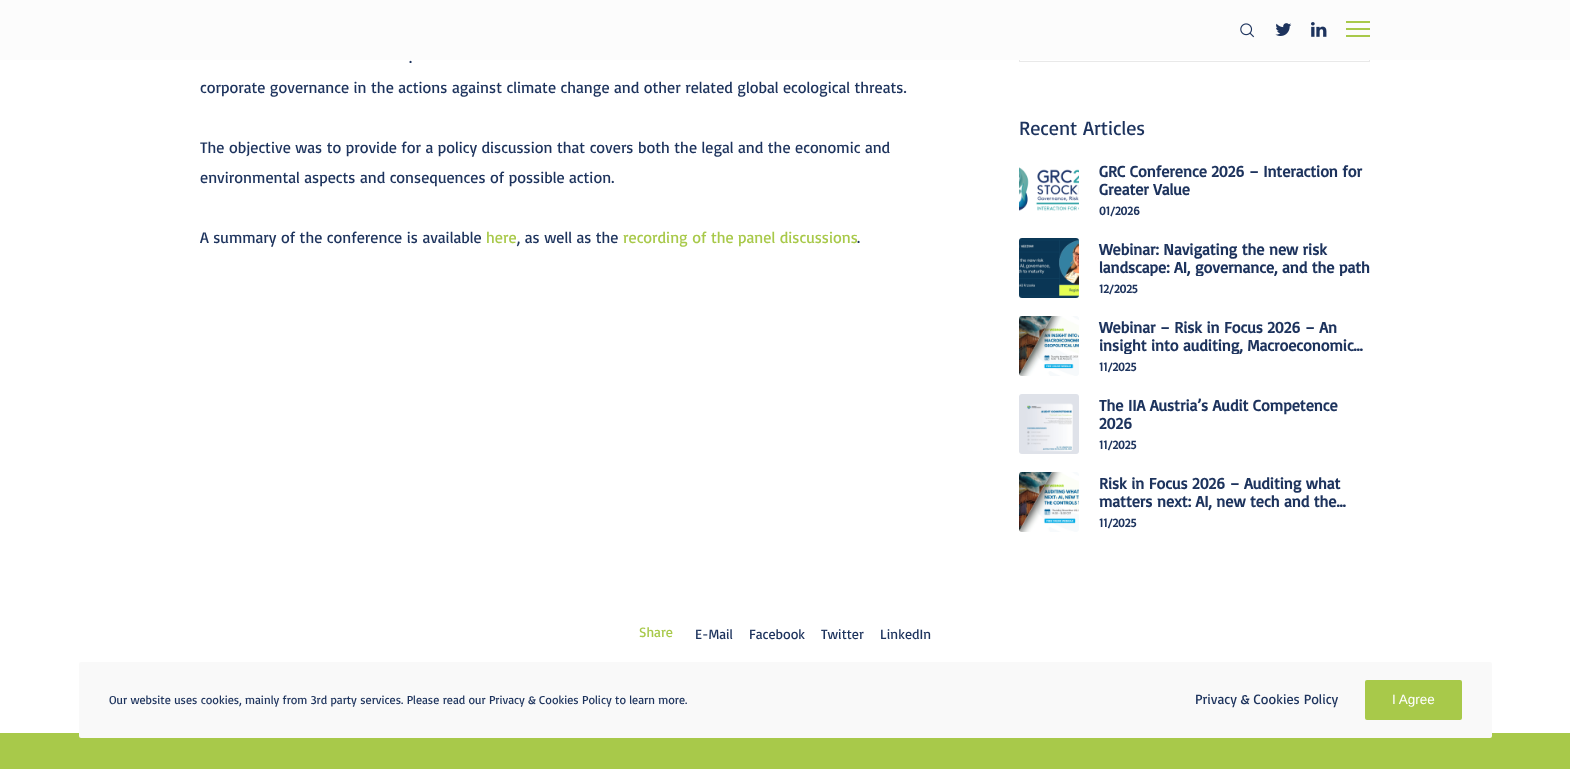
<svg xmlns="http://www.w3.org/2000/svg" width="1570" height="769">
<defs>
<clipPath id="clip1"><rect x="1099" y="240" width="271" height="36"/></clipPath>
<clipPath id="clip2"><rect x="1099" y="318" width="271" height="36"/></clipPath>
</defs>
<rect width="100%" height="100%" fill="#fff"/>
<rect x="1019.5" y="12.5" width="350" height="49" fill="none" stroke="#e9e9e9"/>
<rect width="1570" height="60" fill="#fcfcfc"/>
<image x="1240" y="23" width="15" height="15" href="media/1.png"/>
<image x="1275" y="23" width="17" height="13" href="media/2.png"/>
<image x="1311" y="22" width="16" height="15" href="media/3.png"/>
<rect x="1346" y="21" width="24" height="2" fill="#a8c94a"/>
<rect x="1346" y="28" width="24" height="2" fill="#a8c94a"/>
<rect x="1346" y="35" width="24" height="2" fill="#a8c94a"/>
<text x="409" y="63" style="font-family:Basic;font-size:16px;fill:#1d335d">.</text>
<text x="200" y="93" style="font-family:Basic;font-size:16px;fill:#1d335d">corporate governance in the actions against climate change and other related global ecological threats.</text>
<text x="200" y="153" style="font-family:Basic;font-size:16px;fill:#1d335d">The objective was to provide for a policy discussion that covers both the legal and the economic and</text>
<text x="200" y="183" style="font-family:Basic;font-size:16px;fill:#1d335d">environmental aspects and consequences of possible action.</text>
<text x="200" y="243" style="font-family:Basic;font-size:16px;fill:#1d335d">A summary of the conference is available</text>
<text x="486" y="243" style="font-family:Basic;font-size:16px;fill:#a8c94a">here</text>
<text x="517" y="243" style="font-family:Basic;font-size:16px;fill:#1d335d">, as well as the</text>
<text x="623" y="243" style="font-family:Basic;font-size:16px;fill:#a8c94a">recording of the panel discussions</text>
<text x="857" y="243" style="font-family:Basic;font-size:16px;fill:#1d335d">.</text>
<text x="1019" y="135" style="font-family:Basic;font-size:20px;fill:#1d335d">Recent Articles</text>
<image x="1019" y="167" width="60" height="44" href="media/4.png"/>
<text x="1099" y="177" style="font-family:Basic;font-size:16px;font-weight:bold;fill:#1d335d">GRC Conference 2026 – Interaction for</text>
<text x="1099" y="195" style="font-family:Basic;font-size:16px;font-weight:bold;fill:#1d335d">Greater Value</text>
<text x="1099" y="215" style="font-family:Basic;font-size:12px;font-weight:bold;fill:#1d335d">01/2026</text>
<image x="1019" y="238" width="60" height="60" href="media/5.png"/>
<text x="1099" y="255" style="font-family:Basic;font-size:16px;font-weight:bold;fill:#1d335d">Webinar: Navigating the new risk</text>
<g clip-path="url(#clip1)">
<text x="1099" y="273" style="font-family:Basic;font-size:16px;font-weight:bold;fill:#1d335d">landscape: AI, governance, and the path</text>
</g>
<text x="1099" y="293" style="font-family:Basic;font-size:12px;font-weight:bold;fill:#1d335d">12/2025</text>
<image x="1019" y="316" width="60" height="60" href="media/6.png"/>
<text x="1099" y="333" style="font-family:Basic;font-size:16px;font-weight:bold;fill:#1d335d">Webinar – Risk in Focus 2026 – An</text>
<g clip-path="url(#clip2)">
<text x="1099" y="351" style="font-family:Basic;font-size:16px;font-weight:bold;fill:#1d335d">insight into auditing, Macroeconomic…</text>
</g>
<text x="1099" y="371" style="font-family:Basic;font-size:12px;font-weight:bold;fill:#1d335d">11/2025</text>
<image x="1019" y="394" width="60" height="60" href="media/7.png"/>
<text x="1099" y="411" style="font-family:Basic;font-size:16px;font-weight:bold;fill:#1d335d">The IIA Austria’s Audit Competence</text>
<text x="1099" y="429" style="font-family:Basic;font-size:16px;font-weight:bold;fill:#1d335d">2026</text>
<text x="1099" y="449" style="font-family:Basic;font-size:12px;font-weight:bold;fill:#1d335d">11/2025</text>
<image x="1019" y="472" width="60" height="60" href="media/8.png"/>
<text x="1099" y="489" style="font-family:Basic;font-size:16px;font-weight:bold;fill:#1d335d">Risk in Focus 2026 – Auditing what</text>
<text x="1099" y="507" style="font-family:Basic;font-size:16px;font-weight:bold;fill:#1d335d">matters next: AI, new tech and the…</text>
<text x="1099" y="527" style="font-family:Basic;font-size:12px;font-weight:bold;fill:#1d335d">11/2025</text>
<text x="639" y="637" style="font-family:Basic;font-size:14px;fill:#a8c94a">Share</text>
<text x="695" y="639" style="font-family:Basic;font-size:14px;fill:#1d335d">E-Mail</text>
<text x="749" y="639" style="font-family:Basic;font-size:14px;fill:#1d335d">Facebook</text>
<text x="821" y="639" style="font-family:Basic;font-size:14px;fill:#1d335d">Twitter</text>
<text x="880" y="639" style="font-family:Basic;font-size:14px;fill:#1d335d">LinkedIn</text>
<rect y="733" width="1570" height="36" fill="#a8c94a"/>
<rect x="79" y="662" width="1413" height="76" rx="2" fill="#f9f9f9"/>
<text x="109" y="704" style="font-family:Basic;font-size:12px;fill:#1d335d">Our website uses cookies, mainly from 3rd party services. Please read our Privacy &amp; Cookies Policy to learn more.</text>
<text x="1195" y="704" style="font-family:Basic;font-size:14px;fill:#1d335d">Privacy &amp; Cookies Policy</text>
<rect x="1365" y="680" width="97" height="40" rx="2" fill="#a8c94a"/>
<text x="1392" y="704" style="font-family:Liberation Sans;font-size:13.5px;fill:#fff">I Agree</text>
</svg>
